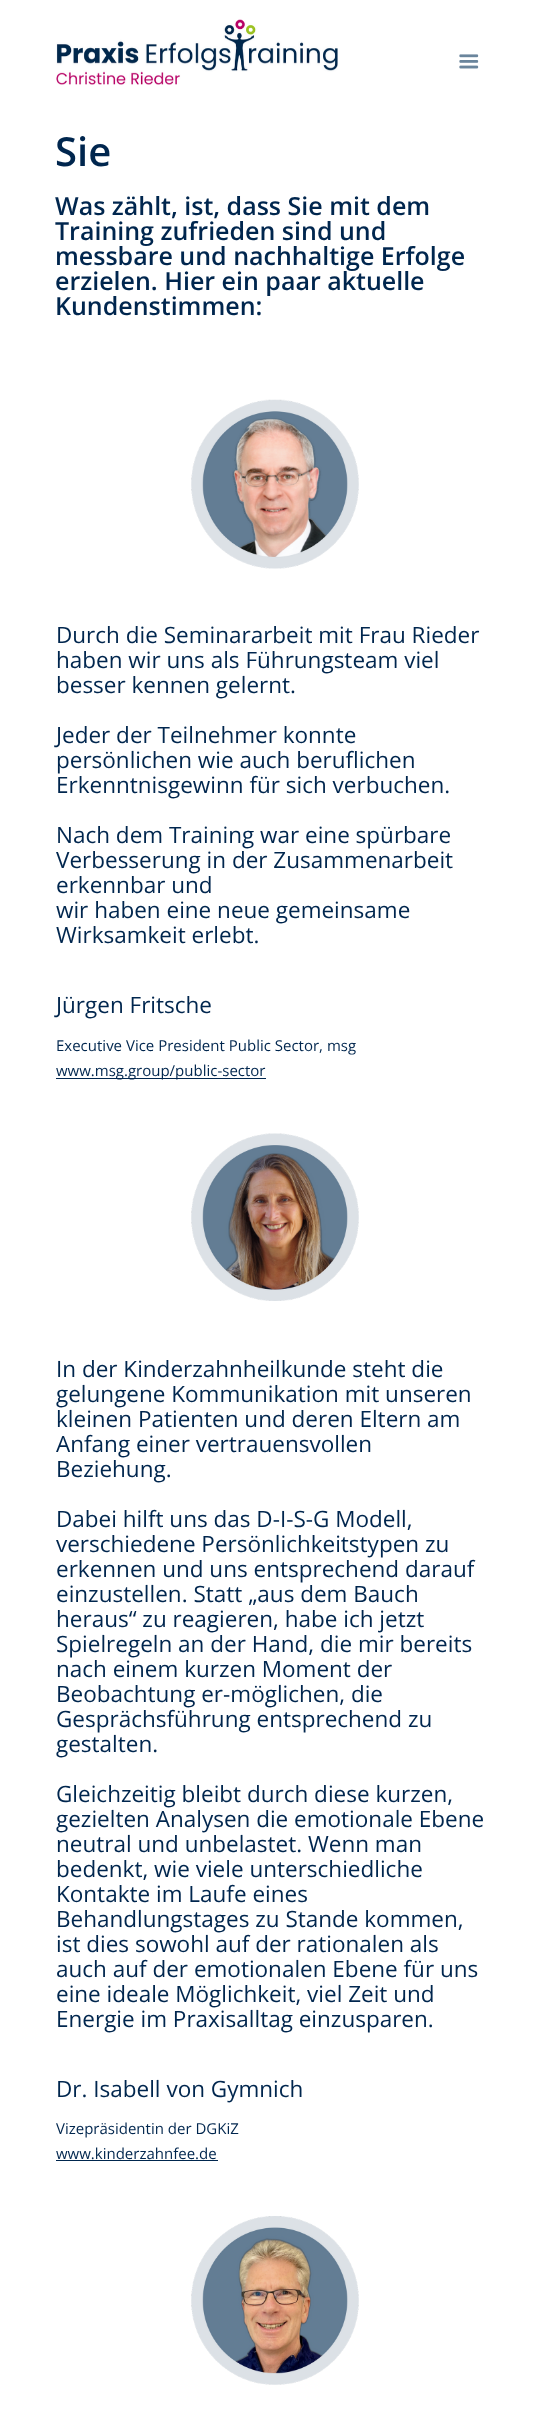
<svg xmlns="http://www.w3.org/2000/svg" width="549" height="2431">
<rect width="100%" height="100%" fill="#fff"/>
<image x="56" y="19" width="282" height="66" href="media/1.png"/>
<image x="459" y="54" width="20" height="15" href="media/2.png"/>
<text x="55" y="166" style="font-family:Open Sans;font-size:40px;font-weight:600;fill:#00264e">Sie</text>
<text x="55" y="215" style="font-family:Open Sans;font-size:25px;font-weight:600;fill:#00264e">Was zählt, ist, dass Sie mit dem</text>
<text x="55" y="240" style="font-family:Open Sans;font-size:25px;font-weight:600;fill:#00264e">Training zufrieden sind und</text>
<text x="55" y="265" style="font-family:Open Sans;font-size:25px;font-weight:600;fill:#00264e">messbare und nachhaltige Erfolge</text>
<text x="55" y="290" style="font-family:Open Sans;font-size:25px;font-weight:600;fill:#00264e">erzielen. Hier ein paar aktuelle</text>
<text x="55" y="315" style="font-family:Open Sans;font-size:25px;font-weight:600;fill:#00264e">Kundenstimmen:</text>
<image x="191" y="399" width="168" height="170" href="media/3.png"/>
<text x="56" y="643" style="font-family:Open Sans;font-size:22.5px;fill:#00264e">Durch die Seminararbeit mit Frau Rieder</text>
<text x="56" y="668" style="font-family:Open Sans;font-size:22.5px;fill:#00264e">haben wir uns als Führungsteam viel</text>
<text x="56" y="693" style="font-family:Open Sans;font-size:22.5px;fill:#00264e">besser kennen gelernt.</text>
<text x="56" y="743" style="font-family:Open Sans;font-size:22.5px;fill:#00264e">Jeder der Teilnehmer konnte</text>
<text x="56" y="768" style="font-family:Open Sans;font-size:22.5px;fill:#00264e">persönlichen wie auch beruflichen</text>
<text x="56" y="793" style="font-family:Open Sans;font-size:22.5px;fill:#00264e">Erkenntnisgewinn für sich verbuchen.</text>
<text x="56" y="843" style="font-family:Open Sans;font-size:22.5px;fill:#00264e">Nach dem Training war eine spürbare</text>
<text x="56" y="868" style="font-family:Open Sans;font-size:22.5px;fill:#00264e">Verbesserung in der Zusammenarbeit</text>
<text x="56" y="893" style="font-family:Open Sans;font-size:22.5px;fill:#00264e">erkennbar und</text>
<text x="56" y="918" style="font-family:Open Sans;font-size:22.5px;fill:#00264e">wir haben eine neue gemeinsame</text>
<text x="56" y="943" style="font-family:Open Sans;font-size:22.5px;fill:#00264e">Wirksamkeit erlebt.</text>
<text x="56" y="1013" style="font-family:Open Sans;font-size:22.5px;fill:#00264e">Jürgen Fritsche</text>
<text x="56" y="1051" style="font-family:Open Sans;font-size:15px;fill:#00264e">Executive Vice President Public Sector, msg</text>
<rect x="56" y="1078" width="210" height="1" fill="#00264e"/>
<text x="56" y="1076" style="font-family:Open Sans;font-size:15px;fill:#00264e">www.msg.group/public-sector</text>
<image x="191" y="1133" width="168" height="168" href="media/4.png"/>
<text x="56" y="1377" style="font-family:Open Sans;font-size:22.5px;fill:#00264e">In der Kinderzahnheilkunde steht die</text>
<text x="56" y="1402" style="font-family:Open Sans;font-size:22.5px;fill:#00264e">gelungene Kommunikation mit unseren</text>
<text x="56" y="1427" style="font-family:Open Sans;font-size:22.5px;fill:#00264e">kleinen Patienten und deren Eltern am</text>
<text x="56" y="1452" style="font-family:Open Sans;font-size:22.5px;fill:#00264e">Anfang einer vertrauensvollen</text>
<text x="56" y="1477" style="font-family:Open Sans;font-size:22.5px;fill:#00264e">Beziehung.</text>
<text x="56" y="1527" style="font-family:Open Sans;font-size:22.5px;fill:#00264e">Dabei hilft uns das D-I-S-G Modell,</text>
<text x="56" y="1552" style="font-family:Open Sans;font-size:22.5px;fill:#00264e">verschiedene Persönlichkeitstypen zu</text>
<text x="56" y="1577" style="font-family:Open Sans;font-size:22.5px;fill:#00264e">erkennen und uns entsprechend darauf</text>
<text x="56" y="1602" style="font-family:Open Sans;font-size:22.5px;fill:#00264e">einzustellen. Statt „aus dem Bauch</text>
<text x="56" y="1627" style="font-family:Open Sans;font-size:22.5px;fill:#00264e">heraus“ zu reagieren, habe ich jetzt</text>
<text x="56" y="1652" style="font-family:Open Sans;font-size:22.5px;fill:#00264e">Spielregeln an der Hand, die mir bereits</text>
<text x="56" y="1677" style="font-family:Open Sans;font-size:22.5px;fill:#00264e">nach einem kurzen Moment der</text>
<text x="56" y="1702" style="font-family:Open Sans;font-size:22.5px;fill:#00264e">Beobachtung er-möglichen, die</text>
<text x="56" y="1727" style="font-family:Open Sans;font-size:22.5px;fill:#00264e">Gesprächsführung entsprechend zu</text>
<text x="56" y="1752" style="font-family:Open Sans;font-size:22.5px;fill:#00264e">gestalten.</text>
<text x="56" y="1802" style="font-family:Open Sans;font-size:22.5px;fill:#00264e">Gleichzeitig bleibt durch diese kurzen,</text>
<text x="56" y="1827" style="font-family:Open Sans;font-size:22.5px;fill:#00264e">gezielten Analysen die emotionale Ebene</text>
<text x="56" y="1852" style="font-family:Open Sans;font-size:22.5px;fill:#00264e">neutral und unbelastet. Wenn man</text>
<text x="56" y="1877" style="font-family:Open Sans;font-size:22.5px;fill:#00264e">bedenkt, wie viele unterschiedliche</text>
<text x="56" y="1902" style="font-family:Open Sans;font-size:22.5px;fill:#00264e">Kontakte im Laufe eines</text>
<text x="56" y="1927" style="font-family:Open Sans;font-size:22.5px;fill:#00264e">Behandlungstages zu Stande kommen,</text>
<text x="56" y="1952" style="font-family:Open Sans;font-size:22.5px;fill:#00264e">ist dies sowohl auf der rationalen als</text>
<text x="56" y="1977" style="font-family:Open Sans;font-size:22.5px;fill:#00264e">auch auf der emotionalen Ebene für uns</text>
<text x="56" y="2002" style="font-family:Open Sans;font-size:22.5px;fill:#00264e">eine ideale Möglichkeit, viel Zeit und</text>
<text x="56" y="2027" style="font-family:Open Sans;font-size:22.5px;fill:#00264e">Energie im Praxisalltag einzusparen.</text>
<text x="56" y="2097" style="font-family:Open Sans;font-size:22.5px;fill:#00264e">Dr. Isabell von Gymnich</text>
<text x="56" y="2134" style="font-family:Open Sans;font-size:15px;fill:#00264e">Vizepräsidentin der DGKiZ</text>
<text x="56" y="2159" style="font-family:Open Sans;font-size:15px;fill:#00264e">www.kinderzahnfee.de</text>
<rect x="56" y="2160" width="162" height="1" fill="#00264e"/>
<image x="191" y="2216" width="168" height="169" href="media/5.png"/>
</svg>
